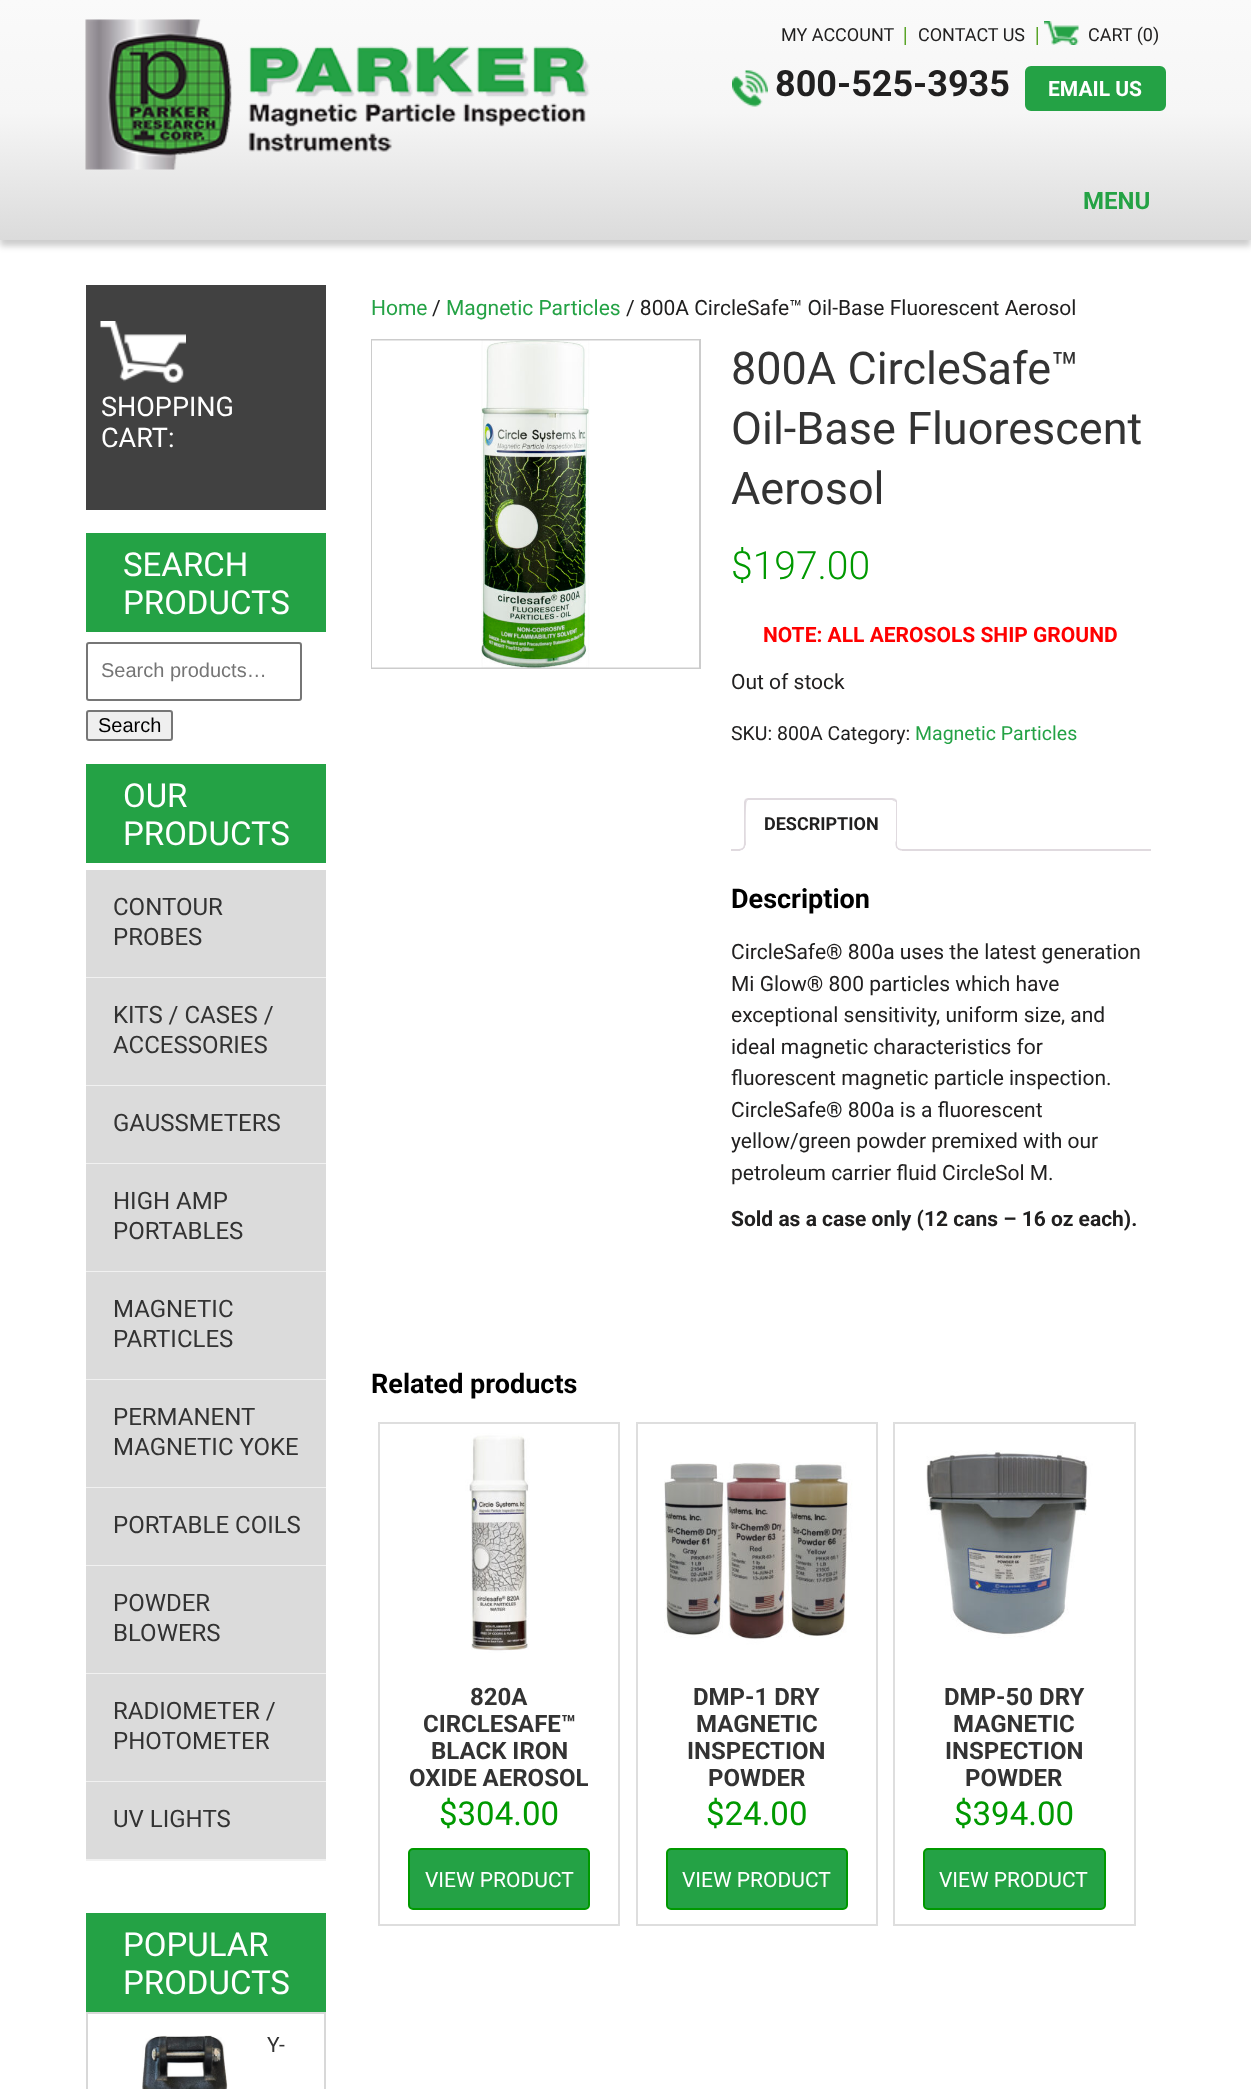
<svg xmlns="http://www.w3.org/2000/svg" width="1251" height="2089">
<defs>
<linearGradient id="g1" gradientUnits="userSpaceOnUse" x1="626" y1="0" x2="626" y2="240"><stop offset="0" stop-color="#fafafa"/><stop offset="0.47" stop-color="#f6f6f6"/><stop offset="1" stop-color="#dbdbdb"/></linearGradient>
<clipPath id="clip1"><rect x="731" y="798" width="420" height="53"/></clipPath>
</defs>
<rect width="100%" height="100%" fill="#fff"/>
<rect y="6" width="1251" height="240" fill="#00000033" filter="blur(3px)"/>
<rect width="1251" height="240" fill="url(#g1)"/>
<image x="85" y="19" width="505" height="151" href="media/1.png"/>
<image x="904" y="27" width="2" height="18" href="media/2.png"/>
<text x="781" y="41" style="font-family:Roboto;font-size:18px;fill:#212020">MY ACCOUNT</text>
<image x="1036" y="27" width="2" height="18" href="media/2.png"/>
<text x="918" y="41" style="font-family:Roboto;font-size:18px;fill:#212020">CONTACT US</text>
<image x="1044" y="21" width="35" height="24" href="media/3.png"/>
<text x="1088" y="41" style="font-family:Roboto;font-size:18px;fill:#212020">CART (0)</text>
<image x="732" y="70" width="36" height="37" href="media/4.png"/>
<text x="775" y="96" style="font-family:Roboto;font-size:36px;font-weight:bold;fill:#212020">800-525-3935</text>
<rect x="1026" y="67" width="139" height="43" rx="5" fill="#24a245" stroke="#24a245" stroke-width="2"/>
<text x="1048" y="96" style="font-family:Roboto;font-size:21px;font-weight:bold;fill:#fff">EMAIL US</text>
<text x="1083" y="209" style="font-family:Roboto;font-size:24px;font-weight:bold;fill:#24a245">MENU</text>
<rect x="86" y="285" width="240" height="225" fill="#414141"/>
<image x="100" y="321" width="86" height="62" href="media/5.png"/>
<text x="101" y="416" style="font-family:Roboto;font-size:27px;fill:#fff">SHOPPING</text>
<text x="101" y="447" style="font-family:Roboto;font-size:27px;fill:#fff">CART:</text>
<rect x="86" y="533" width="240" height="99" fill="#24a245"/>
<text x="123" y="576" style="font-family:Roboto;font-size:33px;fill:#fff">SEARCH</text>
<text x="123" y="614" style="font-family:Roboto;font-size:33px;fill:#fff">PRODUCTS</text>
<rect x="87" y="643" width="214" height="57" rx="2" fill="none" stroke="#767676" stroke-width="2"/>
<text x="101" y="677" style="font-family:Liberation Sans;font-size:20px;fill:#757575">Search products…</text>
<rect x="87" y="711" width="85" height="29" rx="2" fill="#efefef" stroke="#767676" stroke-width="2"/>
<text x="98" y="732" style="font-family:Liberation Sans;font-size:20px;fill:#000">Search</text>
<rect x="86" y="764" width="240" height="99" fill="#24a245"/>
<text x="123" y="807" style="font-family:Roboto;font-size:33px;fill:#fff">OUR</text>
<text x="123" y="845" style="font-family:Roboto;font-size:33px;fill:#fff">PRODUCTS</text>
<rect x="86" y="870" width="240" height="107" fill="#dbdbdb"/>
<rect x="86" y="977" width="240" height="1" fill="#f1f1f1"/>
<text x="113" y="915" style="font-family:Roboto;font-size:24px;fill:#333">CONTOUR</text>
<text x="113" y="945" style="font-family:Roboto;font-size:24px;fill:#333">PROBES</text>
<rect x="86" y="978" width="240" height="107" fill="#dbdbdb"/>
<rect x="86" y="1085" width="240" height="1" fill="#f1f1f1"/>
<text x="113" y="1023" style="font-family:Roboto;font-size:24px;fill:#333">KITS / CASES /</text>
<text x="113" y="1053" style="font-family:Roboto;font-size:24px;fill:#333">ACCESSORIES</text>
<rect x="86" y="1086" width="240" height="77" fill="#dbdbdb"/>
<rect x="86" y="1163" width="240" height="1" fill="#f1f1f1"/>
<text x="113" y="1131" style="font-family:Roboto;font-size:24px;fill:#333">GAUSSMETERS</text>
<rect x="86" y="1164" width="240" height="107" fill="#dbdbdb"/>
<rect x="86" y="1271" width="240" height="1" fill="#f1f1f1"/>
<text x="113" y="1209" style="font-family:Roboto;font-size:24px;fill:#333">HIGH AMP</text>
<text x="113" y="1239" style="font-family:Roboto;font-size:24px;fill:#333">PORTABLES</text>
<rect x="86" y="1272" width="240" height="107" fill="#dbdbdb"/>
<rect x="86" y="1379" width="240" height="1" fill="#f1f1f1"/>
<text x="113" y="1317" style="font-family:Roboto;font-size:24px;fill:#333">MAGNETIC</text>
<text x="113" y="1347" style="font-family:Roboto;font-size:24px;fill:#333">PARTICLES</text>
<rect x="86" y="1380" width="240" height="107" fill="#dbdbdb"/>
<rect x="86" y="1487" width="240" height="1" fill="#f1f1f1"/>
<text x="113" y="1425" style="font-family:Roboto;font-size:24px;fill:#333">PERMANENT</text>
<text x="113" y="1455" style="font-family:Roboto;font-size:24px;fill:#333">MAGNETIC YOKE</text>
<rect x="86" y="1488" width="240" height="77" fill="#dbdbdb"/>
<rect x="86" y="1565" width="240" height="1" fill="#f1f1f1"/>
<text x="113" y="1533" style="font-family:Roboto;font-size:24px;fill:#333">PORTABLE COILS</text>
<rect x="86" y="1566" width="240" height="107" fill="#dbdbdb"/>
<rect x="86" y="1673" width="240" height="1" fill="#f1f1f1"/>
<text x="113" y="1611" style="font-family:Roboto;font-size:24px;fill:#333">POWDER</text>
<text x="113" y="1641" style="font-family:Roboto;font-size:24px;fill:#333">BLOWERS</text>
<rect x="86" y="1674" width="240" height="107" fill="#dbdbdb"/>
<rect x="86" y="1781" width="240" height="1" fill="#f1f1f1"/>
<text x="113" y="1719" style="font-family:Roboto;font-size:24px;fill:#333">RADIOMETER /</text>
<text x="113" y="1749" style="font-family:Roboto;font-size:24px;fill:#333">PHOTOMETER</text>
<rect x="86" y="1782" width="240" height="77" fill="#dbdbdb"/>
<rect x="86" y="1859" width="240" height="2" fill="#f1f1f1"/>
<text x="113" y="1827" style="font-family:Roboto;font-size:24px;fill:#333">UV LIGHTS</text>
<rect x="86" y="1913" width="240" height="99" fill="#24a245"/>
<text x="123" y="1956" style="font-family:Roboto;font-size:33px;fill:#fff">POPULAR</text>
<text x="123" y="1994" style="font-family:Roboto;font-size:33px;fill:#fff">PRODUCTS</text>
<rect x="87" y="2013" width="238" height="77" fill="none" stroke="#d8d8d8" stroke-width="2"/>
<image x="142" y="2035" width="86" height="54" href="media/6.png"/>
<text x="267" y="2052" style="font-family:Roboto;font-size:21px;fill:#333">Y-</text>
<text x="371" y="315" style="font-family:Roboto;font-size:21px;fill:#24a245">Home</text>
<text x="432" y="315" style="font-family:Roboto;font-size:21px;fill:#212020">/</text>
<text x="446" y="315" style="font-family:Roboto;font-size:21px;fill:#24a245">Magnetic Particles</text>
<text x="626" y="315" style="font-family:Roboto;font-size:21px;fill:#212020">/ 800A CircleSafe™ Oil-Base Fluorescent Aerosol</text>
<rect x="372" y="340" width="328" height="328" fill="none" stroke="#ccc" stroke-width="2"/>
<image x="372" y="340" width="327" height="328" href="media/7.png"/>
<text x="731" y="384" style="font-family:Roboto;font-size:45px;fill:#333">800A CircleSafe™</text>
<text x="731" y="444" style="font-family:Roboto;font-size:45px;fill:#333">Oil-Base Fluorescent</text>
<text x="731" y="504" style="font-family:Roboto;font-size:45px;fill:#333">Aerosol</text>
<text x="731" y="579" style="font-family:Roboto;font-size:39px;font-weight:300;fill:#090">$197.00</text>
<text x="763" y="642" style="font-family:Roboto;font-size:21px;font-weight:bold;fill:#f00">NOTE: ALL AEROSOLS SHIP GROUND</text>
<text x="731" y="689" style="font-family:Roboto;font-size:21px;fill:#212020">Out of stock</text>
<text x="731" y="740" style="font-family:Roboto;font-size:19.5px;fill:#212020">SKU: 800A Category:</text>
<text x="915" y="740" style="font-family:Roboto;font-size:19.5px;fill:#24a245">Magnetic Particles</text>
<rect x="731" y="849" width="420" height="2" fill="#e0dadf"/>
<path d="M749 798h143c3 0 5 2 5 5v48h-153v-48c0-3 2-5 5-5z" fill="#fff"/>
<path d="M748 798l-3 1l2 2l1-1h144l2 1l2-2c-1 0-2-1-4-1z" fill="#e0dadf"/>
<path d="M897 850v-49l-1-2l-2 2l2 1v47z" fill="#e0dadf"/>
<path d="M744 802v48l2-2c0-5-1-46 1-47l-2-2z" fill="#e0dadf"/>
<text x="764" y="830" style="font-family:Roboto;font-size:18px;font-weight:bold;fill:#212020">DESCRIPTION</text>
<g clip-path="url(#clip1)">
<path d="M740 850.5v3.5c7.5 0 9-1.5 9-9h-3.5c-.5 3-2.5 5-5.5 5.5z" fill="#fff"/>
</g>
<path d="M736.5 841.5h9c0 7.5-1.5 9-9 9zm0 0h7.5c0 6.5-1 7.5-7.5 7.5z" fill="#e0dadf" fill-rule="evenodd"/>
<g clip-path="url(#clip1)">
<path d="M893 845c0 7.5 1.5 9 9 9v-3.5c-3.5 0-6-2-6.5-5.5z" fill="#fff"/>
</g>
<path d="M895.5 841.5h9v9c-4 0-9-.5-9-6zm1.5 0h7.5v7.5c-3.5 0-7.5 0-7.5-4.5z" fill="#e0dadf" fill-rule="evenodd"/>
<text x="731" y="908" style="font-family:Roboto;font-size:27px;font-weight:bold;fill:#000">Description</text>
<text x="731" y="959" style="font-family:Roboto;font-size:21px;fill:#212020">CircleSafe® 800a uses the latest generation</text>
<text x="731" y="991" style="font-family:Roboto;font-size:21px;fill:#212020">Mi Glow® 800 particles which have</text>
<text x="731" y="1022" style="font-family:Roboto;font-size:21px;fill:#212020">exceptional sensitivity, uniform size, and</text>
<text x="731" y="1054" style="font-family:Roboto;font-size:21px;fill:#212020">ideal magnetic characteristics for</text>
<text x="731" y="1085" style="font-family:Roboto;font-size:21px;fill:#212020">fluorescent magnetic particle inspection.</text>
<text x="731" y="1117" style="font-family:Roboto;font-size:21px;fill:#212020">CircleSafe® 800a is a fluorescent</text>
<text x="731" y="1148" style="font-family:Roboto;font-size:21px;fill:#212020">yellow/green powder premixed with our</text>
<text x="731" y="1180" style="font-family:Roboto;font-size:21px;fill:#212020">petroleum carrier fluid CircleSol M.</text>
<text x="731" y="1226" style="font-family:Roboto;font-size:21px;font-weight:bold;fill:#212020">Sold as a case only (12 cans – 16 oz each).</text>
<text x="371" y="1393" style="font-family:Roboto;font-size:27px;font-weight:bold;fill:#000">Related products</text>
<rect x="379" y="1423" width="240" height="502" fill="none" stroke="#dedede" stroke-width="2"/>
<image x="389" y="1433" width="220" height="220" href="media/8.png"/>
<text x="470" y="1705" style="font-family:Roboto;font-size:24px;font-weight:bold;fill:#333">820A</text>
<text x="423" y="1732" style="font-family:Roboto;font-size:24px;font-weight:bold;fill:#333">CIRCLESAFE™</text>
<text x="431" y="1759" style="font-family:Roboto;font-size:24px;font-weight:bold;fill:#333">BLACK IRON</text>
<text x="409" y="1786" style="font-family:Roboto;font-size:24px;font-weight:bold;fill:#333">OXIDE AEROSOL</text>
<text x="439" y="1825" style="font-family:Roboto;font-size:33px;fill:#090">$304.00</text>
<rect x="409" y="1849" width="180" height="60" rx="4" fill="#24a245" stroke="#090" stroke-width="2"/>
<text x="425" y="1887" style="font-family:Roboto;font-size:21px;fill:#fff">VIEW PRODUCT</text>
<rect x="637" y="1423" width="240" height="502" fill="none" stroke="#dedede" stroke-width="2"/>
<image x="647" y="1433" width="220" height="220" href="media/9.png"/>
<text x="693" y="1705" style="font-family:Roboto;font-size:24px;font-weight:bold;fill:#333">DMP-1 DRY</text>
<text x="696" y="1732" style="font-family:Roboto;font-size:24px;font-weight:bold;fill:#333">MAGNETIC</text>
<text x="687" y="1759" style="font-family:Roboto;font-size:24px;font-weight:bold;fill:#333">INSPECTION</text>
<text x="708" y="1786" style="font-family:Roboto;font-size:24px;font-weight:bold;fill:#333">POWDER</text>
<text x="706" y="1825" style="font-family:Roboto;font-size:33px;fill:#090">$24.00</text>
<rect x="667" y="1849" width="180" height="60" rx="4" fill="#24a245" stroke="#090" stroke-width="2"/>
<text x="682" y="1887" style="font-family:Roboto;font-size:21px;fill:#fff">VIEW PRODUCT</text>
<rect x="894" y="1423" width="241" height="502" fill="none" stroke="#dedede" stroke-width="2"/>
<image x="903" y="1433" width="222" height="220" href="media/10.png"/>
<text x="944" y="1705" style="font-family:Roboto;font-size:24px;font-weight:bold;fill:#333">DMP-50 DRY</text>
<text x="953" y="1732" style="font-family:Roboto;font-size:24px;font-weight:bold;fill:#333">MAGNETIC</text>
<text x="945" y="1759" style="font-family:Roboto;font-size:24px;font-weight:bold;fill:#333">INSPECTION</text>
<text x="965" y="1786" style="font-family:Roboto;font-size:24px;font-weight:bold;fill:#333">POWDER</text>
<text x="954" y="1825" style="font-family:Roboto;font-size:33px;fill:#090">$394.00</text>
<rect x="924" y="1849" width="181" height="60" rx="4" fill="#24a245" stroke="#090" stroke-width="2"/>
<text x="939" y="1887" style="font-family:Roboto;font-size:21px;fill:#fff">VIEW PRODUCT</text>
</svg>
